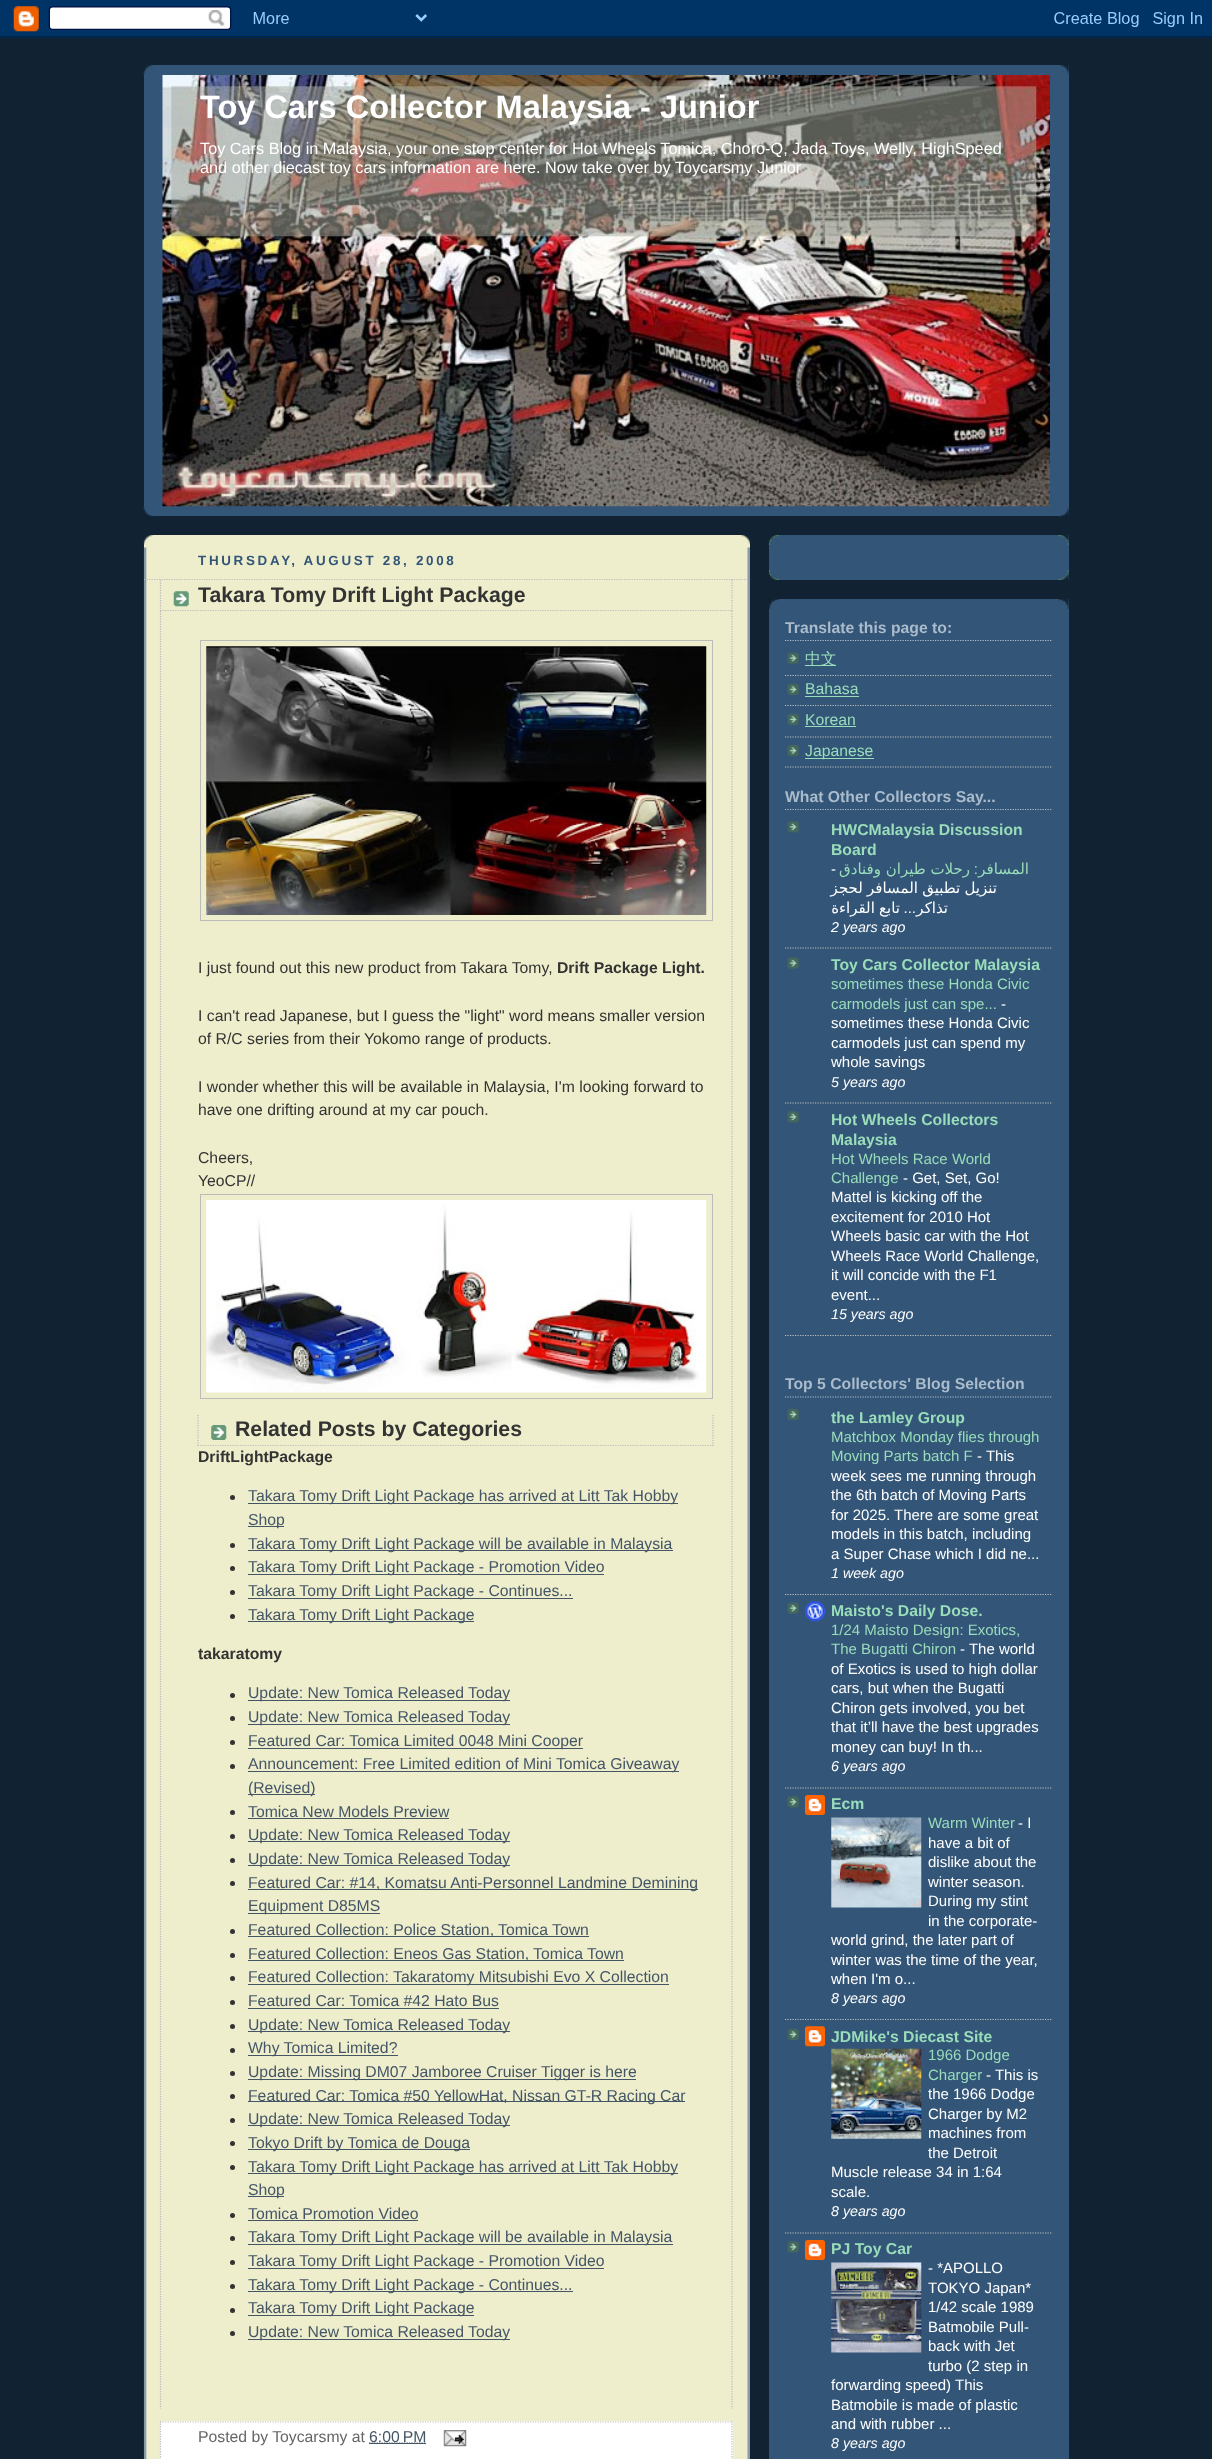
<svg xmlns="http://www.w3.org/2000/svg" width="1212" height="2459">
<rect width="100%" height="100%" fill="#123"/>
<image x="0" y="0" width="1212" height="38" href="media/1.png"/>
<rect x="144" y="65" width="925" height="451" fill="#357"/>
<image x="143" y="65" width="926" height="10" href="media/2.png"/>
<image x="143" y="506" width="926" height="11" href="media/3.png"/>
<image x="162" y="75" width="888" height="432" href="media/4.png"/>
<text x="200" y="118" style="font-family:Liberation Sans;font-size:32.5px;font-weight:bold;fill:#fff">Toy Cars Collector Malaysia - Junior</text>
<text x="200" y="154" style="font-family:Liberation Sans;font-size:16.25px;fill:#fff">Toy Cars Blog in Malaysia, your one stop center for Hot Wheels Tomica, Choro-Q, Jada Toys, Welly, HighSpeed</text>
<text x="200" y="173" style="font-family:Liberation Sans;font-size:16.25px;fill:#fff">and other diecast toy cars information are here. Now take over by Toycarsmy Junior</text>
<rect x="144" y="535" width="606" height="1924" fill="#eec"/>
<image x="143" y="535" width="607" height="10" href="media/5.png"/>
<image x="143" y="547" width="607" height="1912" href="media/6.png"/>
<text x="198" y="565" style="font-family:Liberation Sans;font-size:13.4px;font-weight:bold;letter-spacing:2.7px;fill:#357">THURSDAY, AUGUST 28, 2008</text>
<path d="M144 579.5h605" fill="none" stroke="#bbb" stroke-width="1.2" stroke-dasharray="1.25 1.25"/>
<image x="173" y="591" width="16" height="16" href="media/7.png"/>
<path d="M732 580v31" fill="none" stroke="#bbb" stroke-width="1.2" stroke-dasharray="1.25 1.25"/>
<path d="M160 610.5h572.5" fill="none" stroke="#bbb" stroke-width="1.2" stroke-dasharray="1.25 1.25"/>
<path d="M160.5 580v31" fill="none" stroke="#bbb" stroke-width="1.2" stroke-dasharray="1.25 1.25"/>
<text x="198" y="602" style="font-family:Liberation Sans;font-size:21.25px;font-weight:bold;fill:#333">Takara Tomy Drift Light Package</text>
<path d="M732 611v1798" fill="none" stroke="#bbb" stroke-width="1.2" stroke-dasharray="1.25 1.25"/>
<path d="M160.5 611v1798" fill="none" stroke="#bbb" stroke-width="1.2" stroke-dasharray="1.25 1.25"/>
<rect x="200.5" y="640.5" width="512" height="280" fill="none" stroke="#bbb"/>
<image x="206" y="646" width="501" height="269" href="media/8.png"/>
<text x="198" y="973" style="font-family:Liberation Sans;font-size:15.75px;fill:#333">I just found out this new product from Takara Tomy,</text>
<text x="557" y="973" style="font-family:Liberation Sans;font-size:15.75px;font-weight:bold;fill:#333">Drift Package Light.</text>
<text x="198" y="1021" style="font-family:Liberation Sans;font-size:15.75px;fill:#333">I can't read Japanese, but I guess the "light" word means smaller version</text>
<text x="198" y="1044" style="font-family:Liberation Sans;font-size:15.75px;fill:#333">of R/C series from their Yokomo range of products.</text>
<text x="198" y="1092" style="font-family:Liberation Sans;font-size:15.75px;fill:#333">I wonder whether this will be available in Malaysia, I'm looking forward to</text>
<text x="198" y="1115" style="font-family:Liberation Sans;font-size:15.75px;fill:#333">have one drifting around at my car pouch.</text>
<text x="198" y="1163" style="font-family:Liberation Sans;font-size:15.75px;fill:#333">Cheers,</text>
<text x="198" y="1186" style="font-family:Liberation Sans;font-size:15.75px;fill:#333">YeoCP//</text>
<rect x="200.5" y="1194.5" width="512" height="204" fill="none" stroke="#bbb"/>
<image x="206" y="1200" width="501" height="193" href="media/9.png"/>
<image x="211" y="1425" width="16" height="15" href="media/10.png"/>
<path d="M713 1415v31" fill="none" stroke="#bbb" stroke-width="1.2" stroke-dasharray="1.25 1.25"/>
<path d="M197.5 1445.5h516.5" fill="none" stroke="#bbb" stroke-width="1.2" stroke-dasharray="1.25 1.25"/>
<path d="M198 1415v31" fill="none" stroke="#bbb" stroke-width="1.2" stroke-dasharray="1.25 1.25"/>
<text x="235" y="1436" style="font-family:Liberation Sans;font-size:21.25px;font-weight:bold;fill:#333">Related Posts by Categories</text>
<text x="198" y="1462" style="font-family:Liberation Sans;font-size:15.75px;font-weight:bold;fill:#333">DriftLightPackage</text>
<circle cx="232.5" cy="1497.5" r="2.5" fill="#333"/>
<rect x="248" y="1503" width="430" height="1" fill="#456"/>
<text x="248" y="1501" style="font-family:Liberation Sans;font-size:15.75px;fill:#456">Takara Tomy Drift Light Package has arrived at Litt Tak Hobby</text>
<rect x="248" y="1526" width="36" height="1" fill="#456"/>
<text x="248" y="1525" style="font-family:Liberation Sans;font-size:15.75px;fill:#456">Shop</text>
<circle cx="232.5" cy="1545.5" r="2.5" fill="#333"/>
<rect x="248" y="1550" width="425" height="1" fill="#456"/>
<text x="248" y="1549" style="font-family:Liberation Sans;font-size:15.75px;fill:#456">Takara Tomy Drift Light Package will be available in Malaysia</text>
<circle cx="232.5" cy="1568.5" r="2.5" fill="#333"/>
<rect x="248" y="1574" width="356" height="1" fill="#456"/>
<text x="248" y="1572" style="font-family:Liberation Sans;font-size:15.75px;fill:#456">Takara Tomy Drift Light Package - Promotion Video</text>
<circle cx="232.5" cy="1592.5" r="2.5" fill="#333"/>
<rect x="248" y="1598" width="325" height="1" fill="#456"/>
<text x="248" y="1596" style="font-family:Liberation Sans;font-size:15.75px;fill:#456">Takara Tomy Drift Light Package - Continues...</text>
<circle cx="232.5" cy="1616.5" r="2.5" fill="#333"/>
<rect x="248" y="1621" width="226" height="1" fill="#456"/>
<text x="248" y="1620" style="font-family:Liberation Sans;font-size:15.75px;fill:#456">Takara Tomy Drift Light Package</text>
<text x="198" y="1659" style="font-family:Liberation Sans;font-size:15.75px;font-weight:bold;fill:#333">takaratomy</text>
<circle cx="232.5" cy="1695.5" r="2.5" fill="#333"/>
<rect x="248" y="1700" width="262" height="1" fill="#456"/>
<text x="248" y="1698" style="font-family:Liberation Sans;font-size:15.75px;fill:#456">Update: New Tomica Released Today</text>
<circle cx="232.5" cy="1718.5" r="2.5" fill="#333"/>
<rect x="248" y="1724" width="262" height="1" fill="#456"/>
<text x="248" y="1722" style="font-family:Liberation Sans;font-size:15.75px;fill:#456">Update: New Tomica Released Today</text>
<circle cx="232.5" cy="1742.5" r="2.5" fill="#333"/>
<rect x="248" y="1748" width="335" height="1" fill="#456"/>
<text x="248" y="1746" style="font-family:Liberation Sans;font-size:15.75px;fill:#456">Featured Car: Tomica Limited 0048 Mini Cooper</text>
<circle cx="232.5" cy="1766.5" r="2.5" fill="#333"/>
<rect x="248" y="1771" width="431" height="1" fill="#456"/>
<text x="248" y="1769" style="font-family:Liberation Sans;font-size:15.75px;fill:#456">Announcement: Free Limited edition of Mini Tomica Giveaway</text>
<rect x="248" y="1794" width="67" height="1" fill="#456"/>
<text x="248" y="1793" style="font-family:Liberation Sans;font-size:15.75px;fill:#456">(Revised)</text>
<circle cx="232.5" cy="1812.5" r="2.5" fill="#333"/>
<text x="248" y="1817" style="font-family:Liberation Sans;font-size:15.75px;fill:#456">Tomica New Models Preview</text>
<rect x="248" y="1818" width="201" height="1" fill="#456"/>
<circle cx="232.5" cy="1836.5" r="2.5" fill="#333"/>
<rect x="248" y="1841" width="262" height="1" fill="#456"/>
<text x="248" y="1840" style="font-family:Liberation Sans;font-size:15.75px;fill:#456">Update: New Tomica Released Today</text>
<circle cx="232.5" cy="1860.5" r="2.5" fill="#333"/>
<rect x="248" y="1865" width="262" height="1" fill="#456"/>
<text x="248" y="1864" style="font-family:Liberation Sans;font-size:15.75px;fill:#456">Update: New Tomica Released Today</text>
<circle cx="232.5" cy="1883.5" r="2.5" fill="#333"/>
<rect x="248" y="1889" width="450" height="1" fill="#456"/>
<text x="248" y="1888" style="font-family:Liberation Sans;font-size:15.75px;fill:#456">Featured Car: #14, Komatsu Anti-Personnel Landmine Demining</text>
<rect x="248" y="1913" width="132" height="1" fill="#456"/>
<text x="248" y="1911" style="font-family:Liberation Sans;font-size:15.75px;fill:#456">Equipment D85MS</text>
<circle cx="232.5" cy="1931.5" r="2.5" fill="#333"/>
<rect x="248" y="1936" width="341" height="1" fill="#456"/>
<text x="248" y="1935" style="font-family:Liberation Sans;font-size:15.75px;fill:#456">Featured Collection: Police Station, Tomica Town</text>
<circle cx="232.5" cy="1955.5" r="2.5" fill="#333"/>
<rect x="248" y="1960" width="376" height="1" fill="#456"/>
<text x="248" y="1959" style="font-family:Liberation Sans;font-size:15.75px;fill:#456">Featured Collection: Eneos Gas Station, Tomica Town</text>
<circle cx="232.5" cy="1978.5" r="2.5" fill="#333"/>
<rect x="248" y="1984" width="421" height="1" fill="#456"/>
<text x="248" y="1982" style="font-family:Liberation Sans;font-size:15.75px;fill:#456">Featured Collection: Takaratomy Mitsubishi Evo X Collection</text>
<circle cx="232.5" cy="2002.5" r="2.5" fill="#333"/>
<text x="248" y="2006" style="font-family:Liberation Sans;font-size:15.75px;fill:#456">Featured Car: Tomica #42 Hato Bus</text>
<rect x="248" y="2008" width="251" height="1" fill="#456"/>
<circle cx="232.5" cy="2026.5" r="2.5" fill="#333"/>
<rect x="248" y="2031" width="262" height="1" fill="#456"/>
<text x="248" y="2030" style="font-family:Liberation Sans;font-size:15.75px;fill:#456">Update: New Tomica Released Today</text>
<circle cx="232.5" cy="2050.5" r="2.5" fill="#333"/>
<rect x="248" y="2055" width="150" height="1" fill="#456"/>
<text x="248" y="2053" style="font-family:Liberation Sans;font-size:15.75px;fill:#456">Why Tomica Limited?</text>
<circle cx="232.5" cy="2073.5" r="2.5" fill="#333"/>
<rect x="248" y="2079" width="388" height="1" fill="#456"/>
<text x="248" y="2077" style="font-family:Liberation Sans;font-size:15.75px;fill:#456">Update: Missing DM07 Jamboree Cruiser Tigger is here</text>
<circle cx="232.5" cy="2096.5" r="2.5" fill="#333"/>
<rect x="248" y="2101" width="437" height="1" fill="#456"/>
<text x="248" y="2101" style="font-family:Liberation Sans;font-size:15.75px;fill:#456">Featured Car: Tomica #50 YellowHat, Nissan GT-R Racing Car</text>
<circle cx="232.5" cy="2120.5" r="2.5" fill="#333"/>
<rect x="248" y="2125" width="262" height="1" fill="#456"/>
<text x="248" y="2124" style="font-family:Liberation Sans;font-size:15.75px;fill:#456">Update: New Tomica Released Today</text>
<circle cx="232.5" cy="2143.5" r="2.5" fill="#333"/>
<rect x="248" y="2149" width="222" height="1" fill="#456"/>
<text x="248" y="2148" style="font-family:Liberation Sans;font-size:15.75px;fill:#456">Tokyo Drift by Tomica de Douga</text>
<circle cx="232.5" cy="2167.5" r="2.5" fill="#333"/>
<rect x="248" y="2173" width="430" height="1" fill="#456"/>
<text x="248" y="2172" style="font-family:Liberation Sans;font-size:15.75px;fill:#456">Takara Tomy Drift Light Package has arrived at Litt Tak Hobby</text>
<rect x="248" y="2196" width="36" height="1" fill="#456"/>
<text x="248" y="2195" style="font-family:Liberation Sans;font-size:15.75px;fill:#456">Shop</text>
<circle cx="232.5" cy="2215.5" r="2.5" fill="#333"/>
<text x="248" y="2219" style="font-family:Liberation Sans;font-size:15.75px;fill:#456">Tomica Promotion Video</text>
<rect x="248" y="2220" width="170" height="1" fill="#456"/>
<circle cx="232.5" cy="2238.5" r="2.5" fill="#333"/>
<rect x="248" y="2244" width="425" height="1" fill="#456"/>
<text x="248" y="2242" style="font-family:Liberation Sans;font-size:15.75px;fill:#456">Takara Tomy Drift Light Package will be available in Malaysia</text>
<circle cx="232.5" cy="2262.5" r="2.5" fill="#333"/>
<rect x="248" y="2268" width="356" height="1" fill="#456"/>
<text x="248" y="2266" style="font-family:Liberation Sans;font-size:15.75px;fill:#456">Takara Tomy Drift Light Package - Promotion Video</text>
<circle cx="232.5" cy="2286.5" r="2.5" fill="#333"/>
<rect x="248" y="2291" width="325" height="1" fill="#456"/>
<text x="248" y="2290" style="font-family:Liberation Sans;font-size:15.75px;fill:#456">Takara Tomy Drift Light Package - Continues...</text>
<circle cx="232.5" cy="2310.5" r="2.5" fill="#333"/>
<rect x="248" y="2315" width="226" height="1" fill="#456"/>
<text x="248" y="2313" style="font-family:Liberation Sans;font-size:15.75px;fill:#456">Takara Tomy Drift Light Package</text>
<circle cx="232.5" cy="2333.5" r="2.5" fill="#333"/>
<rect x="248" y="2339" width="262" height="1" fill="#456"/>
<text x="248" y="2337" style="font-family:Liberation Sans;font-size:15.75px;fill:#456">Update: New Tomica Released Today</text>
<rect x="160" y="2421" width="573" height="38" fill="#fff"/>
<path d="M160 2422h572.5" fill="none" stroke="#bbb" stroke-width="1.2" stroke-dasharray="1.25 1.25"/>
<path d="M732 2421v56.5" fill="none" stroke="#bbb" stroke-width="1.2" stroke-dasharray="1.25 1.25"/>
<path d="M160.5 2421v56.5" fill="none" stroke="#bbb" stroke-width="1.2" stroke-dasharray="1.25 1.25"/>
<text x="198" y="2442" style="font-family:Liberation Sans;font-size:15.75px;fill:#666">Posted by Toycarsmy at</text>
<path d="M369 2443h57.5" fill="none" stroke="#456" stroke-width="1.2" stroke-dasharray="1.25 1.25"/>
<text x="369" y="2442" style="font-family:Liberation Sans;font-size:15.75px;fill:#456">6:00 PM</text>
<rect x="369" y="2443" width="57" height="1" fill="#456"/>
<image x="443" y="2430" width="24" height="17" href="media/11.png"/>
<rect x="769" y="535" width="300" height="45" fill="#357"/>
<image x="768" y="570" width="301" height="10" href="media/12.png"/>
<image x="768" y="535" width="301" height="10" href="media/13.png"/>
<rect x="769" y="599" width="300" height="1860" fill="#357"/>
<image x="769" y="599" width="300" height="10" href="media/14.png"/>
<path d="M785 640.5h267.5" fill="none" stroke="#abc" stroke-width="1.2" stroke-dasharray="1.25 1.25"/>
<text x="785" y="633" style="font-family:Liberation Sans;font-size:15.75px;font-weight:bold;fill:#abc">Translate this page to:</text>
<image x="787" y="652" width="12" height="12" href="media/15.png"/>
<path d="M785 675.5h267.5" fill="none" stroke="#bbb" stroke-width="1.2" stroke-dasharray="1.25 1.25"/>
<rect x="805" y="665" width="31" height="1" fill="#9db"/>
<text x="805" y="664" style="font-family:WenQuanYi Zen Hei;font-size:15.75px;font-weight:500;fill:#9db">中文</text>
<image x="787" y="683" width="12" height="12" href="media/16.png"/>
<path d="M785 705.5h267.5" fill="none" stroke="#bbb" stroke-width="1.2" stroke-dasharray="1.25 1.25"/>
<text x="805" y="694" style="font-family:Liberation Sans;font-size:15.75px;fill:#9db">Bahasa</text>
<rect x="805" y="696" width="54" height="1" fill="#9db"/>
<image x="787" y="713" width="12" height="12" href="media/16.png"/>
<path d="M785 737h267.5" fill="none" stroke="#bbb" stroke-width="1.2" stroke-dasharray="1.25 1.25"/>
<text x="805" y="725" style="font-family:Liberation Sans;font-size:15.75px;fill:#9db">Korean</text>
<rect x="805" y="726" width="51" height="1" fill="#9db"/>
<image x="787" y="745" width="12" height="12" href="media/17.png"/>
<path d="M785 767h267.5" fill="none" stroke="#bbb" stroke-width="1.2" stroke-dasharray="1.25 1.25"/>
<rect x="805" y="758" width="69" height="1" fill="#9db"/>
<text x="805" y="756" style="font-family:Liberation Sans;font-size:15.75px;fill:#9db">Japanese</text>
<path d="M785 809.5h267.5" fill="none" stroke="#abc" stroke-width="1.2" stroke-dasharray="1.25 1.25"/>
<text x="785" y="802" style="font-family:Liberation Sans;font-size:15.75px;font-weight:bold;fill:#abc">What Other Collectors Say...</text>
<image x="787" y="821" width="12" height="12" href="media/18.png"/>
<path d="M785 948h267.5" fill="none" stroke="#bbb" stroke-width="1.2" stroke-dasharray="1.25 1.25"/>
<text x="831" y="835" style="font-family:Liberation Sans;font-size:15.75px;font-weight:bold;fill:#9db">HWCMalaysia Discussion</text>
<text x="831" y="855" style="font-family:Liberation Sans;font-size:15.75px;font-weight:bold;fill:#9db">Board</text>
<text x="831" y="874" style="font-family:Liberation Sans;font-size:15px;fill:#fff">-</text>
<text x="970" y="874" style="font-family:DejaVu Sans;font-size:15px;direction:rtl;fill:#9db">رحلات طيران وفنادق</text>
<text x="978" y="874" style="font-family:Liberation Sans;font-size:15px;direction:rtl;fill:#9db">:</text>
<text x="1029" y="874" style="font-family:DejaVu Sans;font-size:15px;direction:rtl;fill:#9db">المسافر</text>
<text x="997" y="893" word-spacing="-0.5" style="font-family:DejaVu Sans;font-size:15px;direction:rtl;fill:#fff">تنزيل تطبيق المسافر لحجز</text>
<text x="900" y="913" word-spacing="-0.5" style="font-family:DejaVu Sans;font-size:15px;direction:rtl;fill:#fff">تابع القراءة</text>
<text x="916" y="913" style="font-family:Liberation Sans;font-size:15px;direction:rtl;fill:#fff">...</text>
<text x="948" y="913" style="font-family:DejaVu Sans;font-size:15px;direction:rtl;fill:#fff">تذاكر</text>
<text x="831" y="932" style="font-family:Liberation Sans;font-size:14.25px;font-style:italic;fill:#fff">2 years ago</text>
<image x="787" y="957" width="12" height="12" href="media/15.png"/>
<path d="M785 1103h267.5" fill="none" stroke="#bbb" stroke-width="1.2" stroke-dasharray="1.25 1.25"/>
<text x="831" y="970" style="font-family:Liberation Sans;font-size:15.75px;font-weight:bold;fill:#9db">Toy Cars Collector Malaysia</text>
<text x="831" y="989" style="font-family:Liberation Sans;font-size:15px;fill:#9db">sometimes these Honda Civic</text>
<text x="831" y="1009" style="font-family:Liberation Sans;font-size:15px;fill:#9db">carmodels just can spe...</text>
<text x="1001" y="1009" style="font-family:Liberation Sans;font-size:15px;fill:#fff">-</text>
<text x="831" y="1028" style="font-family:Liberation Sans;font-size:15px;fill:#fff">sometimes these Honda Civic</text>
<text x="831" y="1048" style="font-family:Liberation Sans;font-size:15px;fill:#fff">carmodels just can spend my</text>
<text x="831" y="1067" style="font-family:Liberation Sans;font-size:15px;fill:#fff">whole savings</text>
<text x="831" y="1087" style="font-family:Liberation Sans;font-size:14.25px;font-style:italic;fill:#fff">5 years ago</text>
<image x="787" y="1111" width="12" height="12" href="media/18.png"/>
<path d="M785 1335.5h267.5" fill="none" stroke="#bbb" stroke-width="1.2" stroke-dasharray="1.25 1.25"/>
<text x="831" y="1125" style="font-family:Liberation Sans;font-size:15.75px;font-weight:bold;fill:#9db">Hot Wheels Collectors</text>
<text x="831" y="1145" style="font-family:Liberation Sans;font-size:15.75px;font-weight:bold;fill:#9db">Malaysia</text>
<text x="831" y="1164" style="font-family:Liberation Sans;font-size:15px;fill:#9db">Hot Wheels Race World</text>
<text x="831" y="1183" style="font-family:Liberation Sans;font-size:15px;fill:#9db">Challenge</text>
<text x="903" y="1183" style="font-family:Liberation Sans;font-size:15px;fill:#fff">- Get, Set, Go!</text>
<text x="831" y="1202" style="font-family:Liberation Sans;font-size:15px;fill:#fff">Mattel is kicking off the</text>
<text x="831" y="1222" style="font-family:Liberation Sans;font-size:15px;fill:#fff">excitement for 2010 Hot</text>
<text x="831" y="1241" style="font-family:Liberation Sans;font-size:15px;fill:#fff">Wheels basic car with the Hot</text>
<text x="831" y="1261" style="font-family:Liberation Sans;font-size:15px;fill:#fff">Wheels Race World Challenge,</text>
<text x="831" y="1280" style="font-family:Liberation Sans;font-size:15px;fill:#fff">it will concide with the F1</text>
<text x="831" y="1300" style="font-family:Liberation Sans;font-size:15px;fill:#fff">event...</text>
<text x="831" y="1319" style="font-family:Liberation Sans;font-size:14.25px;font-style:italic;fill:#fff">15 years ago</text>
<path d="M785 1397h267.5" fill="none" stroke="#abc" stroke-width="1.2" stroke-dasharray="1.25 1.25"/>
<text x="785" y="1389" style="font-family:Liberation Sans;font-size:15.75px;font-weight:bold;fill:#abc">Top 5 Collectors' Blog Selection</text>
<image x="787" y="1408" width="12" height="12" href="media/16.png"/>
<path d="M785 1594.5h267.5" fill="none" stroke="#bbb" stroke-width="1.2" stroke-dasharray="1.25 1.25"/>
<text x="831" y="1423" style="font-family:Liberation Sans;font-size:15.75px;font-weight:bold;fill:#9db">the Lamley Group</text>
<text x="831" y="1442" style="font-family:Liberation Sans;font-size:15px;fill:#9db">Matchbox Monday flies through</text>
<text x="831" y="1461" style="font-family:Liberation Sans;font-size:15px;fill:#9db">Moving Parts batch F</text>
<text x="977" y="1461" style="font-family:Liberation Sans;font-size:15px;fill:#fff">- This</text>
<text x="831" y="1481" style="font-family:Liberation Sans;font-size:15px;fill:#fff">week sees me running through</text>
<text x="831" y="1500" style="font-family:Liberation Sans;font-size:15px;fill:#fff">the 6th batch of Moving Parts</text>
<text x="831" y="1520" style="font-family:Liberation Sans;font-size:15px;fill:#fff">for 2025.</text>
<text x="894" y="1520" style="font-family:Liberation Sans;font-size:15px;fill:#fff">There are some great</text>
<text x="831" y="1539" style="font-family:Liberation Sans;font-size:15px;fill:#fff">models in this batch, including</text>
<text x="831" y="1559" style="font-family:Liberation Sans;font-size:15px;fill:#fff">a Super Chase which I did ne...</text>
<text x="831" y="1578" style="font-family:Liberation Sans;font-size:14.25px;font-style:italic;fill:#fff">1 week ago</text>
<image x="787" y="1602" width="12" height="12" href="media/15.png"/>
<path d="M785 1788h267.5" fill="none" stroke="#bbb" stroke-width="1.2" stroke-dasharray="1.25 1.25"/>
<image x="805" y="1601" width="20" height="21" href="media/19.png"/>
<text x="831" y="1616" style="font-family:Liberation Sans;font-size:15.75px;font-weight:bold;fill:#9db">Maisto's Daily Dose.</text>
<text x="831" y="1635" style="font-family:Liberation Sans;font-size:15px;fill:#9db">1/24 Maisto Design: Exotics,</text>
<text x="831" y="1654" style="font-family:Liberation Sans;font-size:15px;fill:#9db">The Bugatti Chiron</text>
<text x="960" y="1654" style="font-family:Liberation Sans;font-size:15px;fill:#fff">- The world</text>
<text x="831" y="1674" style="font-family:Liberation Sans;font-size:15px;fill:#fff">of Exotics is used to high dollar</text>
<text x="831" y="1693" style="font-family:Liberation Sans;font-size:15px;fill:#fff">cars, but when the Bugatti</text>
<text x="831" y="1713" style="font-family:Liberation Sans;font-size:15px;fill:#fff">Chiron gets involved, you bet</text>
<text x="831" y="1732" style="font-family:Liberation Sans;font-size:15px;fill:#fff">that it’ll have the best upgrades</text>
<text x="831" y="1752" style="font-family:Liberation Sans;font-size:15px;fill:#fff">money can buy! In th...</text>
<text x="831" y="1771" style="font-family:Liberation Sans;font-size:14.25px;font-style:italic;fill:#fff">6 years ago</text>
<image x="787" y="1796" width="12" height="12" href="media/18.png"/>
<path d="M785 2019.5h267.5" fill="none" stroke="#bbb" stroke-width="1.2" stroke-dasharray="1.25 1.25"/>
<image x="805" y="1795" width="20" height="20" href="media/20.png"/>
<text x="831" y="1809" style="font-family:Liberation Sans;font-size:15.75px;font-weight:bold;fill:#9db">Ecm</text>
<image x="831" y="1817" width="91" height="91" href="media/21.png"/>
<text x="928" y="1828" style="font-family:Liberation Sans;font-size:15px;fill:#9db">Warm Winter</text>
<text x="1018" y="1828" style="font-family:Liberation Sans;font-size:15px;fill:#fff">- I</text>
<text x="928" y="1848" style="font-family:Liberation Sans;font-size:15px;fill:#fff">have a bit of</text>
<text x="928" y="1867" style="font-family:Liberation Sans;font-size:15px;fill:#fff">dislike about the</text>
<text x="928" y="1887" style="font-family:Liberation Sans;font-size:15px;fill:#fff">winter season.</text>
<text x="928" y="1906" style="font-family:Liberation Sans;font-size:15px;fill:#fff">During my stint</text>
<text x="928" y="1926" style="font-family:Liberation Sans;font-size:15px;fill:#fff">in the corporate-</text>
<text x="831" y="1945" style="font-family:Liberation Sans;font-size:15px;fill:#fff">world grind, the later part of</text>
<text x="831" y="1965" style="font-family:Liberation Sans;font-size:15px;fill:#fff">winter was the time of the year,</text>
<text x="831" y="1984" style="font-family:Liberation Sans;font-size:15px;fill:#fff">when I'm o...</text>
<text x="831" y="2003" style="font-family:Liberation Sans;font-size:14.25px;font-style:italic;fill:#fff">8 years ago</text>
<image x="787" y="2028" width="12" height="12" href="media/16.png"/>
<path d="M785 2233h267.5" fill="none" stroke="#bbb" stroke-width="1.2" stroke-dasharray="1.25 1.25"/>
<image x="805" y="2026" width="20" height="21" href="media/22.png"/>
<text x="831" y="2042" style="font-family:Liberation Sans;font-size:15.75px;font-weight:bold;fill:#9db">JDMike's Diecast Site</text>
<image x="831" y="2048" width="91" height="91" href="media/23.png"/>
<text x="928" y="2060" style="font-family:Liberation Sans;font-size:15px;fill:#9db">1966 Dodge</text>
<text x="928" y="2080" style="font-family:Liberation Sans;font-size:15px;fill:#9db">Charger</text>
<text x="986" y="2080" style="font-family:Liberation Sans;font-size:15px;fill:#fff">- This is</text>
<text x="928" y="2099" style="font-family:Liberation Sans;font-size:15px;fill:#fff">the 1966 Dodge</text>
<text x="928" y="2119" style="font-family:Liberation Sans;font-size:15px;fill:#fff">Charger by M2</text>
<text x="928" y="2138" style="font-family:Liberation Sans;font-size:15px;fill:#fff">machines from</text>
<text x="928" y="2158" style="font-family:Liberation Sans;font-size:15px;fill:#fff">the Detroit</text>
<text x="831" y="2177" style="font-family:Liberation Sans;font-size:15px;fill:#fff">Muscle release 34 in 1:64</text>
<text x="831" y="2197" style="font-family:Liberation Sans;font-size:15px;fill:#fff">scale.</text>
<text x="831" y="2216" style="font-family:Liberation Sans;font-size:14.25px;font-style:italic;fill:#fff">8 years ago</text>
<image x="787" y="2241" width="12" height="12" href="media/18.png"/>
<image x="805" y="2240" width="20" height="20" href="media/20.png"/>
<text x="831" y="2254" style="font-family:Liberation Sans;font-size:15.75px;font-weight:bold;fill:#9db">PJ Toy Car</text>
<image x="831" y="2262" width="91" height="91" href="media/24.png"/>
<text x="928" y="2273" style="font-family:Liberation Sans;font-size:15px;fill:#fff">- *APOLLO</text>
<text x="928" y="2293" style="font-family:Liberation Sans;font-size:15px;fill:#fff">TOKYO Japan*</text>
<text x="928" y="2312" style="font-family:Liberation Sans;font-size:15px;fill:#fff">1/42 scale 1989</text>
<text x="928" y="2332" style="font-family:Liberation Sans;font-size:15px;fill:#fff">Batmobile Pull-</text>
<text x="928" y="2351" style="font-family:Liberation Sans;font-size:15px;fill:#fff">back with Jet</text>
<text x="928" y="2371" style="font-family:Liberation Sans;font-size:15px;fill:#fff">turbo (2 step in</text>
<text x="831" y="2390" style="font-family:Liberation Sans;font-size:15px;fill:#fff">forwarding speed)</text>
<text x="955" y="2390" style="font-family:Liberation Sans;font-size:15px;fill:#fff">This</text>
<text x="831" y="2410" style="font-family:Liberation Sans;font-size:15px;fill:#fff">Batmobile is made of plastic</text>
<text x="831" y="2429" style="font-family:Liberation Sans;font-size:15px;fill:#fff">and with rubber ...</text>
<text x="831" y="2448" style="font-family:Liberation Sans;font-size:14.25px;font-style:italic;fill:#fff">8 years ago</text>
</svg>
